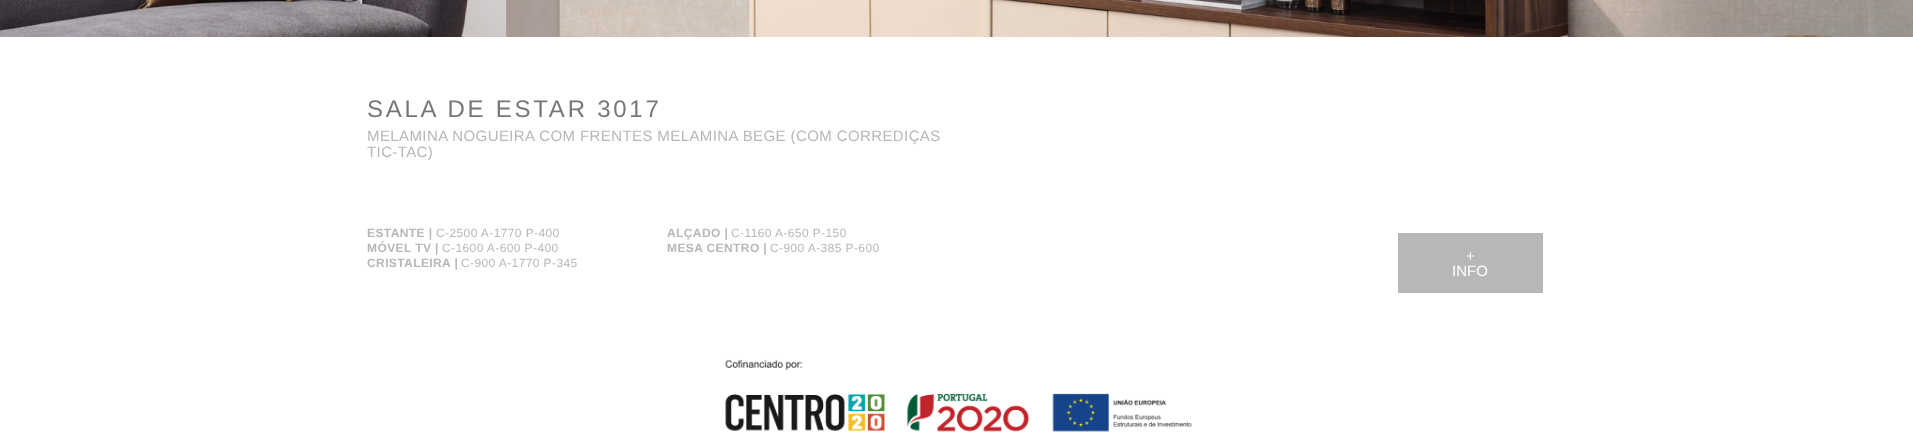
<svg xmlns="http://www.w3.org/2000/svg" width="1913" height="447">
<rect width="100%" height="100%" fill="#fff"/>
<image x="0" y="0" width="1913" height="37" href="media/1.png"/>
<text x="367" y="117" style="font-family:Liberation Sans;font-size:24px;letter-spacing:2.75px;fill:#787778">SALA DE ESTAR 3017</text>
<text x="367" y="141" style="font-family:Liberation Sans;font-size:15px;letter-spacing:0.4px;fill:#b7b7b7">MELAMINA NOGUEIRA COM FRENTES MELAMINA BEGE (COM CORREDIÇAS</text>
<text x="367" y="157" style="font-family:Liberation Sans;font-size:15px;letter-spacing:0.4px;fill:#b7b7b7">TIC-TAC)</text>
<text x="367" y="237" style="font-family:Liberation Sans;font-size:12px;font-weight:bold;letter-spacing:0.4px;fill:#b7b7b7">ESTANTE |</text>
<text x="436" y="237" style="font-family:Liberation Sans;font-size:12px;letter-spacing:0.4px;fill:#b7b7b7">C-2500 A-1770 P-400</text>
<text x="367" y="252" style="font-family:Liberation Sans;font-size:12px;font-weight:bold;letter-spacing:0.4px;fill:#b7b7b7">MÓVEL TV |</text>
<text x="442" y="252" style="font-family:Liberation Sans;font-size:12px;letter-spacing:0.4px;fill:#b7b7b7">C-1600 A-600 P-400</text>
<text x="367" y="267" style="font-family:Liberation Sans;font-size:12px;font-weight:bold;letter-spacing:0.4px;fill:#b7b7b7">CRISTALEIRA |</text>
<text x="461" y="267" style="font-family:Liberation Sans;font-size:12px;letter-spacing:0.4px;fill:#b7b7b7">C-900 A-1770 P-345</text>
<text x="667" y="237" style="font-family:Liberation Sans;font-size:12px;font-weight:bold;letter-spacing:0.4px;fill:#b7b7b7">ALÇADO |</text>
<text x="731" y="237" style="font-family:Liberation Sans;font-size:12px;letter-spacing:0.4px;fill:#b7b7b7">C-1160 A-650 P-150</text>
<text x="667" y="252" style="font-family:Liberation Sans;font-size:12px;font-weight:bold;letter-spacing:0.4px;fill:#b7b7b7">MESA CENTRO |</text>
<text x="770" y="252" style="font-family:Liberation Sans;font-size:12px;letter-spacing:0.4px;fill:#b7b7b7">C-900 A-385 P-600</text>
<rect x="1398" y="233" width="145" height="60" fill="#b7b7b7"/>
<text x="1466" y="261" style="font-family:Liberation Sans;font-size:15px;fill:#fff">+</text>
<text x="1452" y="276" style="font-family:Liberation Sans;font-size:15px;fill:#fff">INFO</text>
<image x="725" y="359" width="467" height="73" href="media/2.png"/>
</svg>
